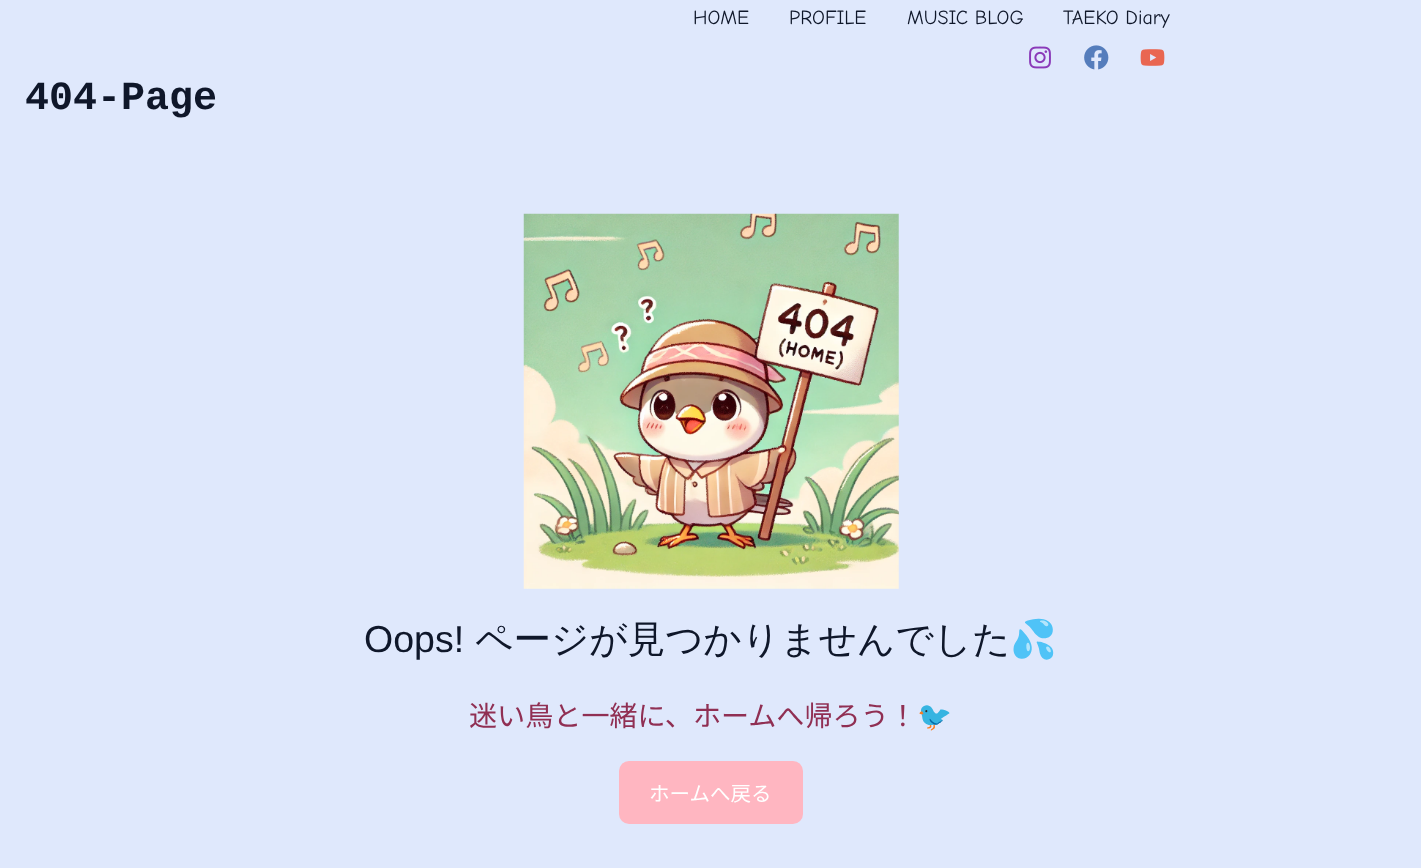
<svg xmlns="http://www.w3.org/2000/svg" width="1421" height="868">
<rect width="100%" height="100%" fill="#dfe8fc"/>
<text x="693" y="24" style="font-family:Comic Neue;font-size:20px;fill:#0f172a">HOME</text>
<text x="789" y="24" style="font-family:Comic Neue;font-size:20px;fill:#0f172a">PROFILE</text>
<text x="907" y="24" style="font-family:Comic Neue;font-size:20px;fill:#0f172a">MUSIC BLOG</text>
<text x="1063" y="24" style="font-family:Comic Neue;font-size:20px;fill:#0f172a">TAEKO Diary</text>
<image x="1029" y="46" width="22" height="23" href="media/1.png"/>
<image x="1084" y="45" width="25" height="25" href="media/2.png"/>
<image x="1140" y="49" width="25" height="17" href="media/3.png"/>
<text x="25" y="109" style="font-family:Liberation Mono;font-size:40px;font-weight:bold;fill:#0f172a">404-Page</text>
<image x="523" y="213" width="376" height="376" href="media/4.png"/>
<text x="364" y="652" style="font-family:Liberation Sans;font-size:37.5px;fill:#0f172a">Oops!</text>
<text x="475" y="652" style="font-family:WenQuanYi Zen Hei;font-size:37.5px;font-weight:500;fill:#0f172a">ページが見つかりませんでした</text>
<text x="1010" y="652" style="font-family:Noto Color Emoji;font-size:37.5px;fill:#0f172a">💦</text>
<text x="469" y="726" style="font-family:Noto Sans JP;font-size:28.1px;fill:#902f53">迷い鳥と一緒に、ホームへ帰ろう！</text>
<text x="917" y="726" style="font-family:Noto Color Emoji;font-size:28.1px;fill:#902f53">🐦</text>
<rect x="619" y="761" width="184" height="63" rx="10" fill="#ffb6c1"/>
<text x="649" y="801" style="font-family:Noto Sans JP;font-size:20.5px;fill:#fff">ホームへ戻る</text>
</svg>
